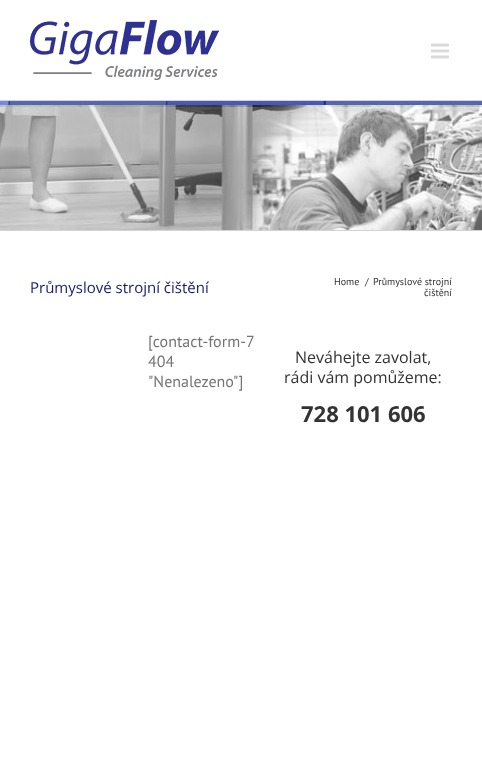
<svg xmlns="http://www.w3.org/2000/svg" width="482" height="769">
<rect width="100%" height="100%" fill="#fff"/>
<image x="30" y="20" width="189" height="60" href="media/1.png"/>
<image x="431" y="43" width="18" height="16" href="media/2.png"/>
<image x="0" y="101" width="482" height="129" href="media/3.png"/>
<rect y="100" width="482" height="1" fill="#d2d3d4"/>
<rect y="230" width="482" height="1" fill="#d2d3d4"/>
<text x="30" y="293" style="font-family:Open Sans;font-size:15px;fill:#1a1a72">Průmyslové strojní čištění</text>
<text x="334" y="285" style="font-family:PT Sans;font-size:10px;fill:#333">Home</text>
<text x="365" y="285" style="font-family:PT Sans;font-size:10px;fill:#333">/</text>
<text x="373" y="285" style="font-family:PT Sans;font-size:10px;fill:#333">Průmyslové strojní</text>
<text x="424" y="296" style="font-family:PT Sans;font-size:10px;fill:#333">čištění</text>
<text x="148" y="347" style="font-family:PT Sans;font-size:16px;fill:#747474">[contact-form-7</text>
<text x="148" y="367" style="font-family:PT Sans;font-size:16px;fill:#747474">404</text>
<text x="148" y="387" style="font-family:PT Sans;font-size:16px;fill:#747474">"Nenalezeno"]</text>
<text x="295" y="363" style="font-family:Open Sans;font-size:16px;fill:#333">Neváhejte zavolat,</text>
<text x="284" y="383" style="font-family:Open Sans;font-size:16px;fill:#333">rádi vám pomůžeme:</text>
<text x="301" y="422" style="font-family:Open Sans;font-size:22px;font-weight:bold;fill:#333">728 101 606</text>
</svg>
